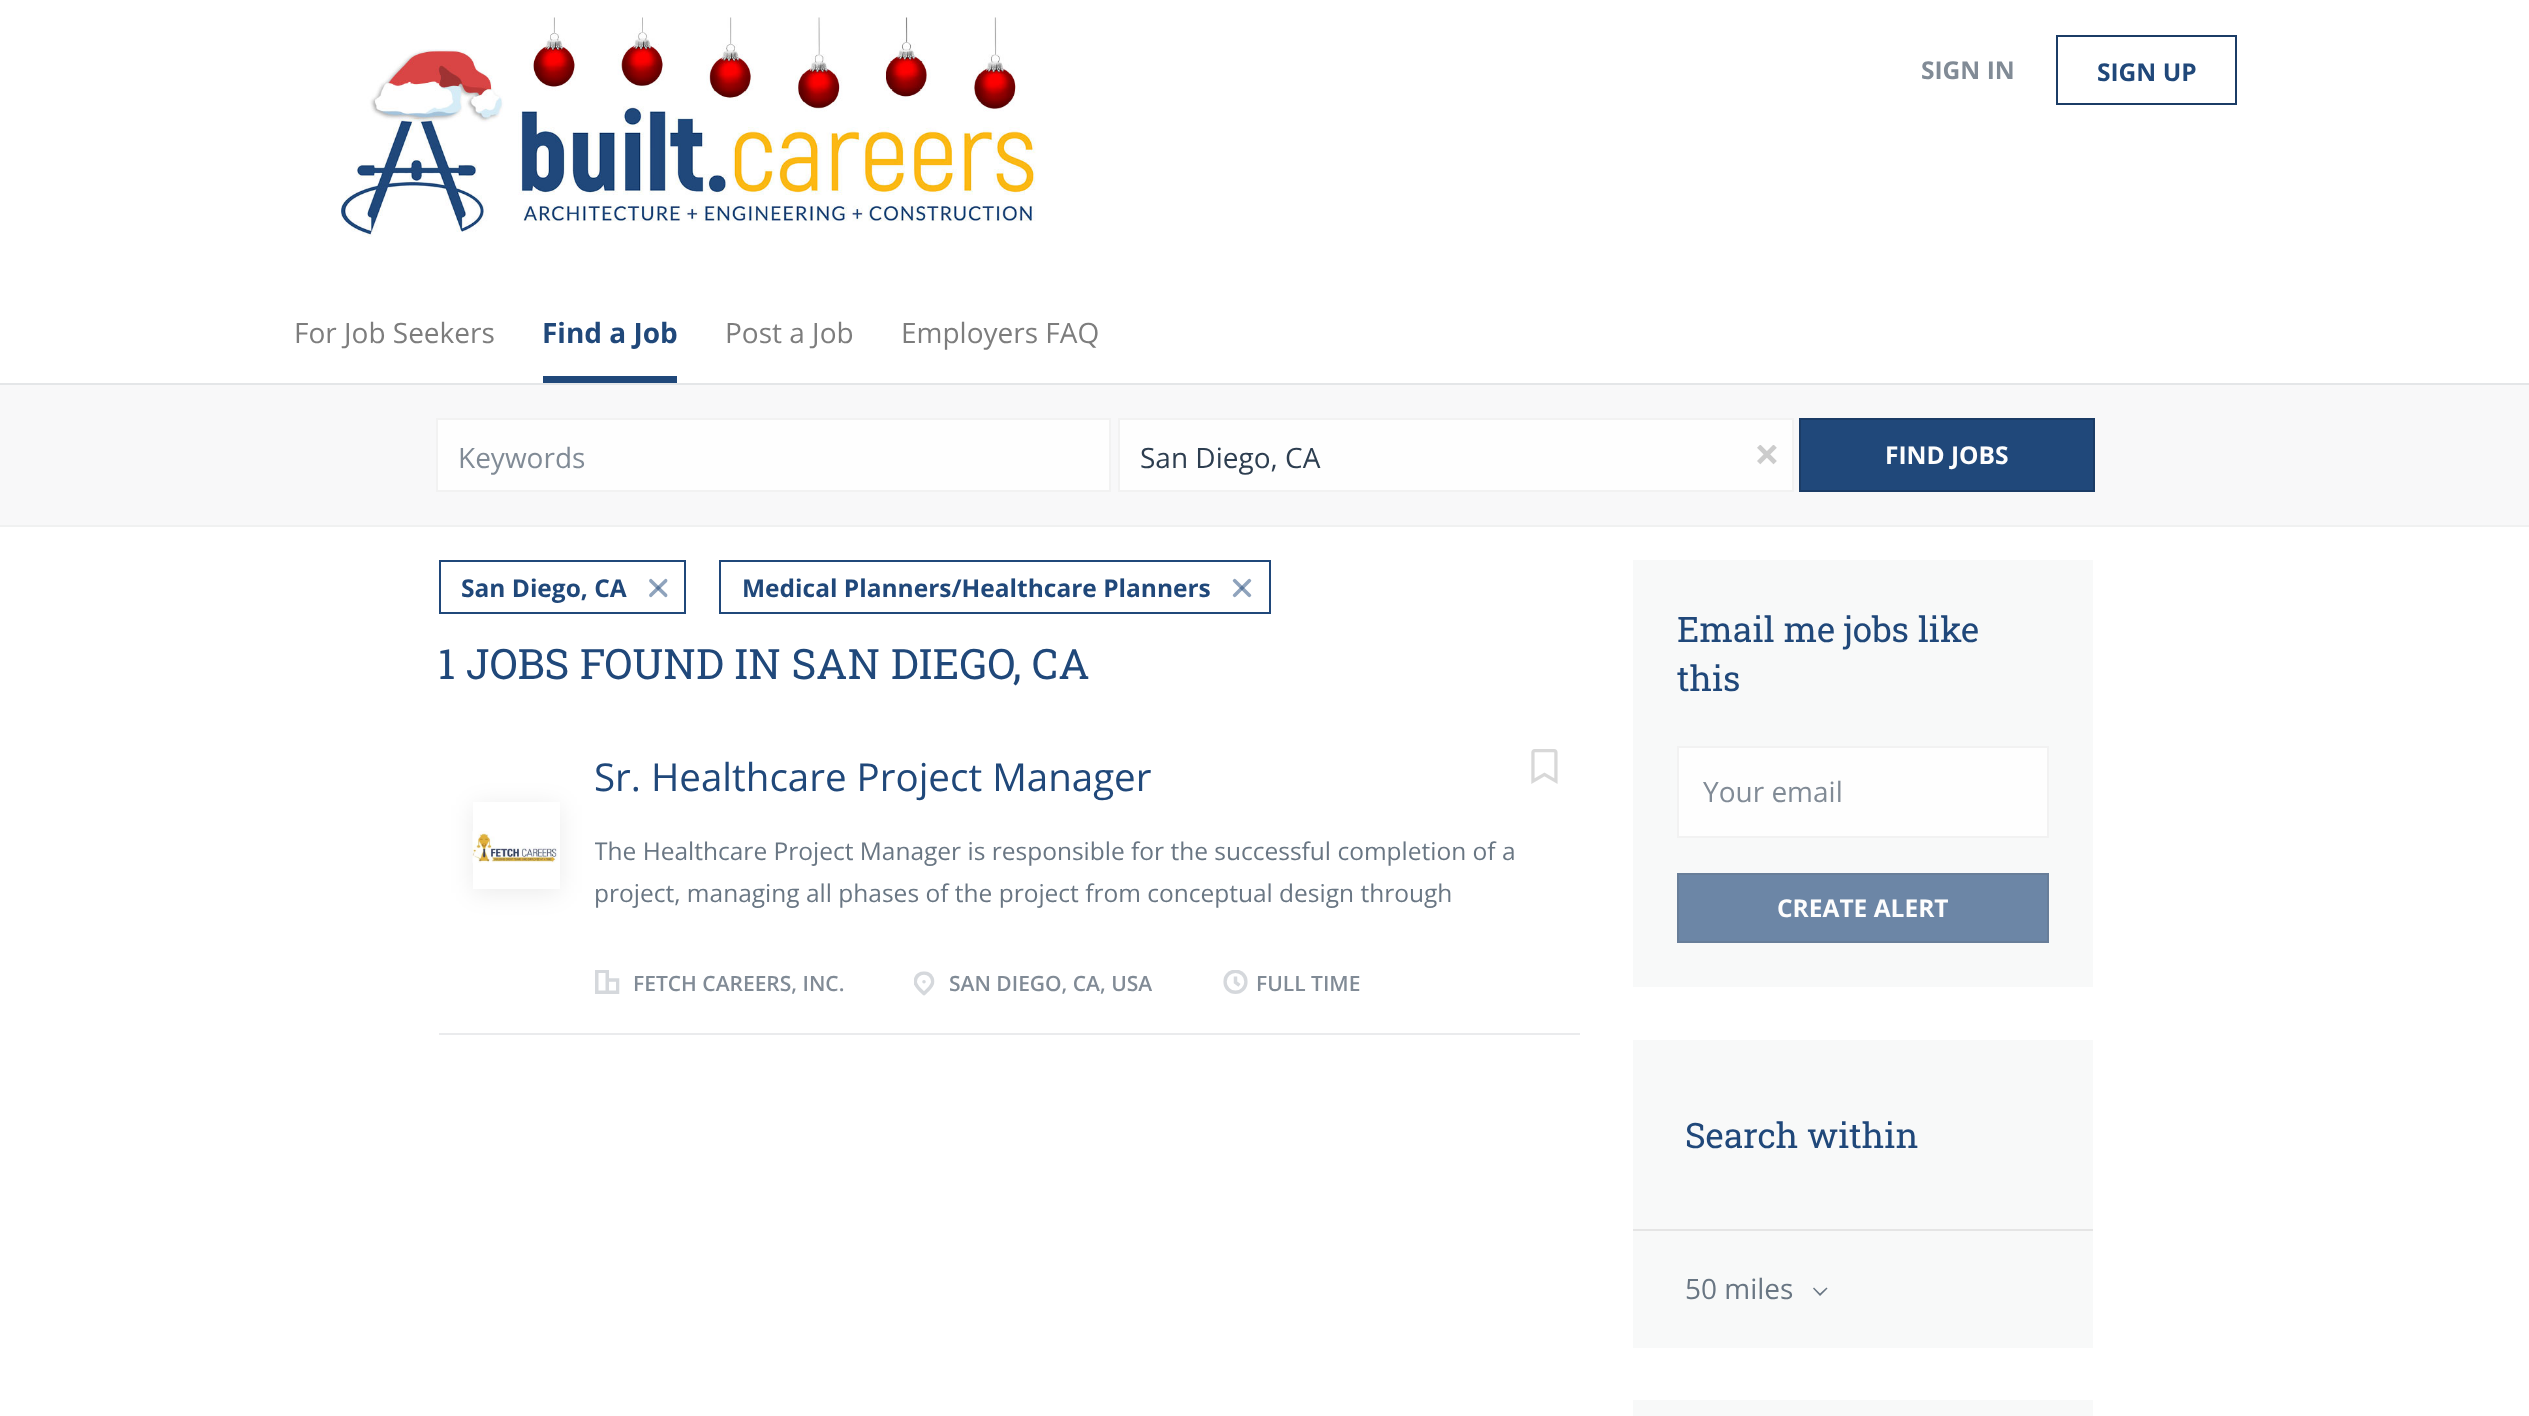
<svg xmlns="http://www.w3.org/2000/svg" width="2529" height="1416">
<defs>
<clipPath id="clip1"><path d="M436 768h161v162h-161zm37 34h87v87h-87z" clip-rule="evenodd"/></clipPath>
<clipPath id="clip2"><rect x="595" y="830" width="933" height="84"/></clipPath>
</defs>
<rect width="100%" height="100%" fill="#fff"/>
<rect y="383" width="2529" height="2" fill="#e4e6e8"/>
<image x="341" y="17" width="695" height="220" href="media/1.png"/>
<text x="1921" y="79" style="font-family:Open Sans;font-size:24.5px;font-weight:bold;fill:#818b96">SIGN IN</text>
<rect x="2057" y="36" width="179" height="68" fill="none" stroke="#1b3c66" stroke-width="2"/>
<text x="2097" y="81" style="font-family:Open Sans;font-size:24.5px;font-weight:bold;fill:#20487a">SIGN UP</text>
<text x="294" y="343" style="font-family:Open Sans;font-size:28px;fill:#7d7d7d">For Job Seekers</text>
<rect x="543" y="376" width="134" height="7" fill="#20487a"/>
<text x="542" y="343" style="font-family:Open Sans;font-size:28px;font-weight:bold;fill:#20487a">Find a Job</text>
<text x="725" y="343" style="font-family:Open Sans;font-size:28px;fill:#7d7d7d">Post a Job</text>
<text x="901" y="343" style="font-family:Open Sans;font-size:28px;fill:#7d7d7d">Employers FAQ</text>
<path d="M0 525v2h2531v-140h-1v138z" fill="#f0f1f1"/>
<rect y="385" width="2529" height="140" fill="#f8f8f9"/>
<rect x="437" y="419" width="673" height="72" fill="#fefefe" stroke="#f2f2f2" stroke-width="2"/>
<text x="458" y="468" style="font-family:Open Sans;font-size:28px;fill:#818b96">Keywords</text>
<rect x="1119" y="419" width="674" height="72" fill="#fefefe" stroke="#f2f2f2" stroke-width="2"/>
<text x="1140" y="468" style="font-family:Open Sans;font-size:28px;fill:#2d3e50">San Diego, CA</text>
<image x="1757" y="445" width="20" height="20" href="media/2.png"/>
<rect x="1800" y="419" width="294" height="72" fill="#20487a" stroke="#1b3c66" stroke-width="2"/>
<text x="1885" y="464" style="font-family:Open Sans;font-size:24.5px;font-weight:bold;fill:#fdfdfd">FIND JOBS</text>
<rect x="440" y="561" width="245" height="52" fill="none" stroke="#20487a" stroke-width="2"/>
<text x="461" y="597" style="font-family:Open Sans;font-size:24.5px;font-weight:bold;fill:#20487a">San Diego, CA</text>
<path d="M649.5 594l15-14.5c.5-1 2-1 2.5 0c.5 .5 .5 1.5 0 2.5l-15 14.5c-.5 1-1.5 1-2.5 0c-.5-.5-.5-1.5 0-2.5z" fill="#90a4bd"/>
<path d="M652 579.5l15 14.5c.5 1 .5 2 0 2.5c-.5 1-2 1-2.5 0l-15-14.5c-.5-1-.5-2 0-2.5c1-1 2-1 2.5 0z" fill="#20487a80"/>
<rect x="720" y="561" width="550" height="52" fill="none" stroke="#20487a" stroke-width="2"/>
<text x="742" y="597" style="font-family:Open Sans;font-size:24.5px;font-weight:bold;fill:#20487a">Medical Planners/Healthcare Planners</text>
<path d="M1233.5 594l14.5-14.5c1-1 2-1 2.5 0c1 .5 1 1.5 0 2.5l-14.5 14.5c-1 1-2 1-2.5 0c-1-.5-1-1.5 0-2.5z" fill="#90a4bd"/>
<path d="M1236 579.5l14.5 14.5c1 1 1 2 0 2.5c-.5 1-1.5 1-2.5 0l-14.5-14.5c-1-1-1-2 0-2.5c.5-1 1.5-1 2.5 0z" fill="#20487a80"/>
<text x="438" y="679" style="font-family:Roboto Slab;font-size:42px;fill:#20487a">1 JOBS FOUND IN SAN DIEGO, CA</text>
<rect x="439" y="1033" width="1141" height="2" fill="#eaebed"/>
<g clip-path="url(#clip1)">
<rect x="473" y="805" width="87" height="88" fill="#00000014" filter="blur(12px)"/>
</g>
<image x="472" y="831" width="86" height="32" href="media/3.png"/>
<text x="594" y="791" style="font-family:Open Sans;font-size:38.5px;fill:#20487a">Sr. Healthcare Project Manager</text>
<image x="1531" y="749" width="27" height="35" href="media/4.png"/>
<g clip-path="url(#clip2)">
<text x="594" y="860" style="font-family:Open Sans;font-size:24.5px;fill:#697683">The Healthcare Project Manager is responsible for the successful completion of a</text>
</g>
<text x="594" y="902" style="font-family:Open Sans;font-size:24.5px;fill:#697683">project, managing all phases of the project from conceptual design through</text>
<image x="595" y="970" width="25" height="24" href="media/5.png"/>
<text x="633" y="991" style="font-family:Open Sans;font-size:21px;font-weight:600;fill:#818b96">FETCH CAREERS, INC.</text>
<image x="914" y="971" width="21" height="25" href="media/6.png"/>
<text x="949" y="991" style="font-family:Open Sans;font-size:21px;font-weight:600;fill:#818b96">SAN DIEGO, CA, USA</text>
<image x="1223" y="970" width="25" height="24" href="media/7.png"/>
<text x="1256" y="991" style="font-family:Open Sans;font-size:21px;font-weight:600;fill:#818b96">FULL TIME</text>
<rect x="1633" y="560" width="460" height="427" fill="#f8f9f9"/>
<text x="1677" y="642" style="font-family:Roboto Slab;font-size:35px;fill:#20487a">Email me jobs like</text>
<text x="1677" y="691" style="font-family:Roboto Slab;font-size:35px;fill:#20487a">this</text>
<rect x="1678" y="747" width="370" height="90" fill="#fefefe" stroke="#f2f2f2" stroke-width="2"/>
<text x="1703" y="802" style="font-family:Open Sans;font-size:28px;fill:#818b96">Your email</text>
<rect x="1678" y="874" width="370" height="68" fill="#6c86a6" stroke="#687e99" stroke-width="2"/>
<text x="1777" y="917" style="font-family:Open Sans;font-size:24.5px;font-weight:bold;fill:#fdfdfd">CREATE ALERT</text>
<rect x="1633" y="1040" width="460" height="308" fill="#f8f9f9"/>
<rect x="1633" y="1229" width="460" height="2" fill="#e5e5e5"/>
<text x="1685" y="1148" style="font-family:Roboto Slab;font-size:35px;fill:#20487a">Search within</text>
<text x="1685" y="1299" style="font-family:Open Sans;font-size:28px;fill:#697683">50 miles</text>
<path d="M1827.5 1288.5l-7.5 7.5v-2.5l6.5-6zm-7.5 7.5l-7-7.5l1-1l6 6z" fill="#697683"/>
<rect x="1633" y="1400" width="460" height="16" fill="#f8f9f9"/>
</svg>
